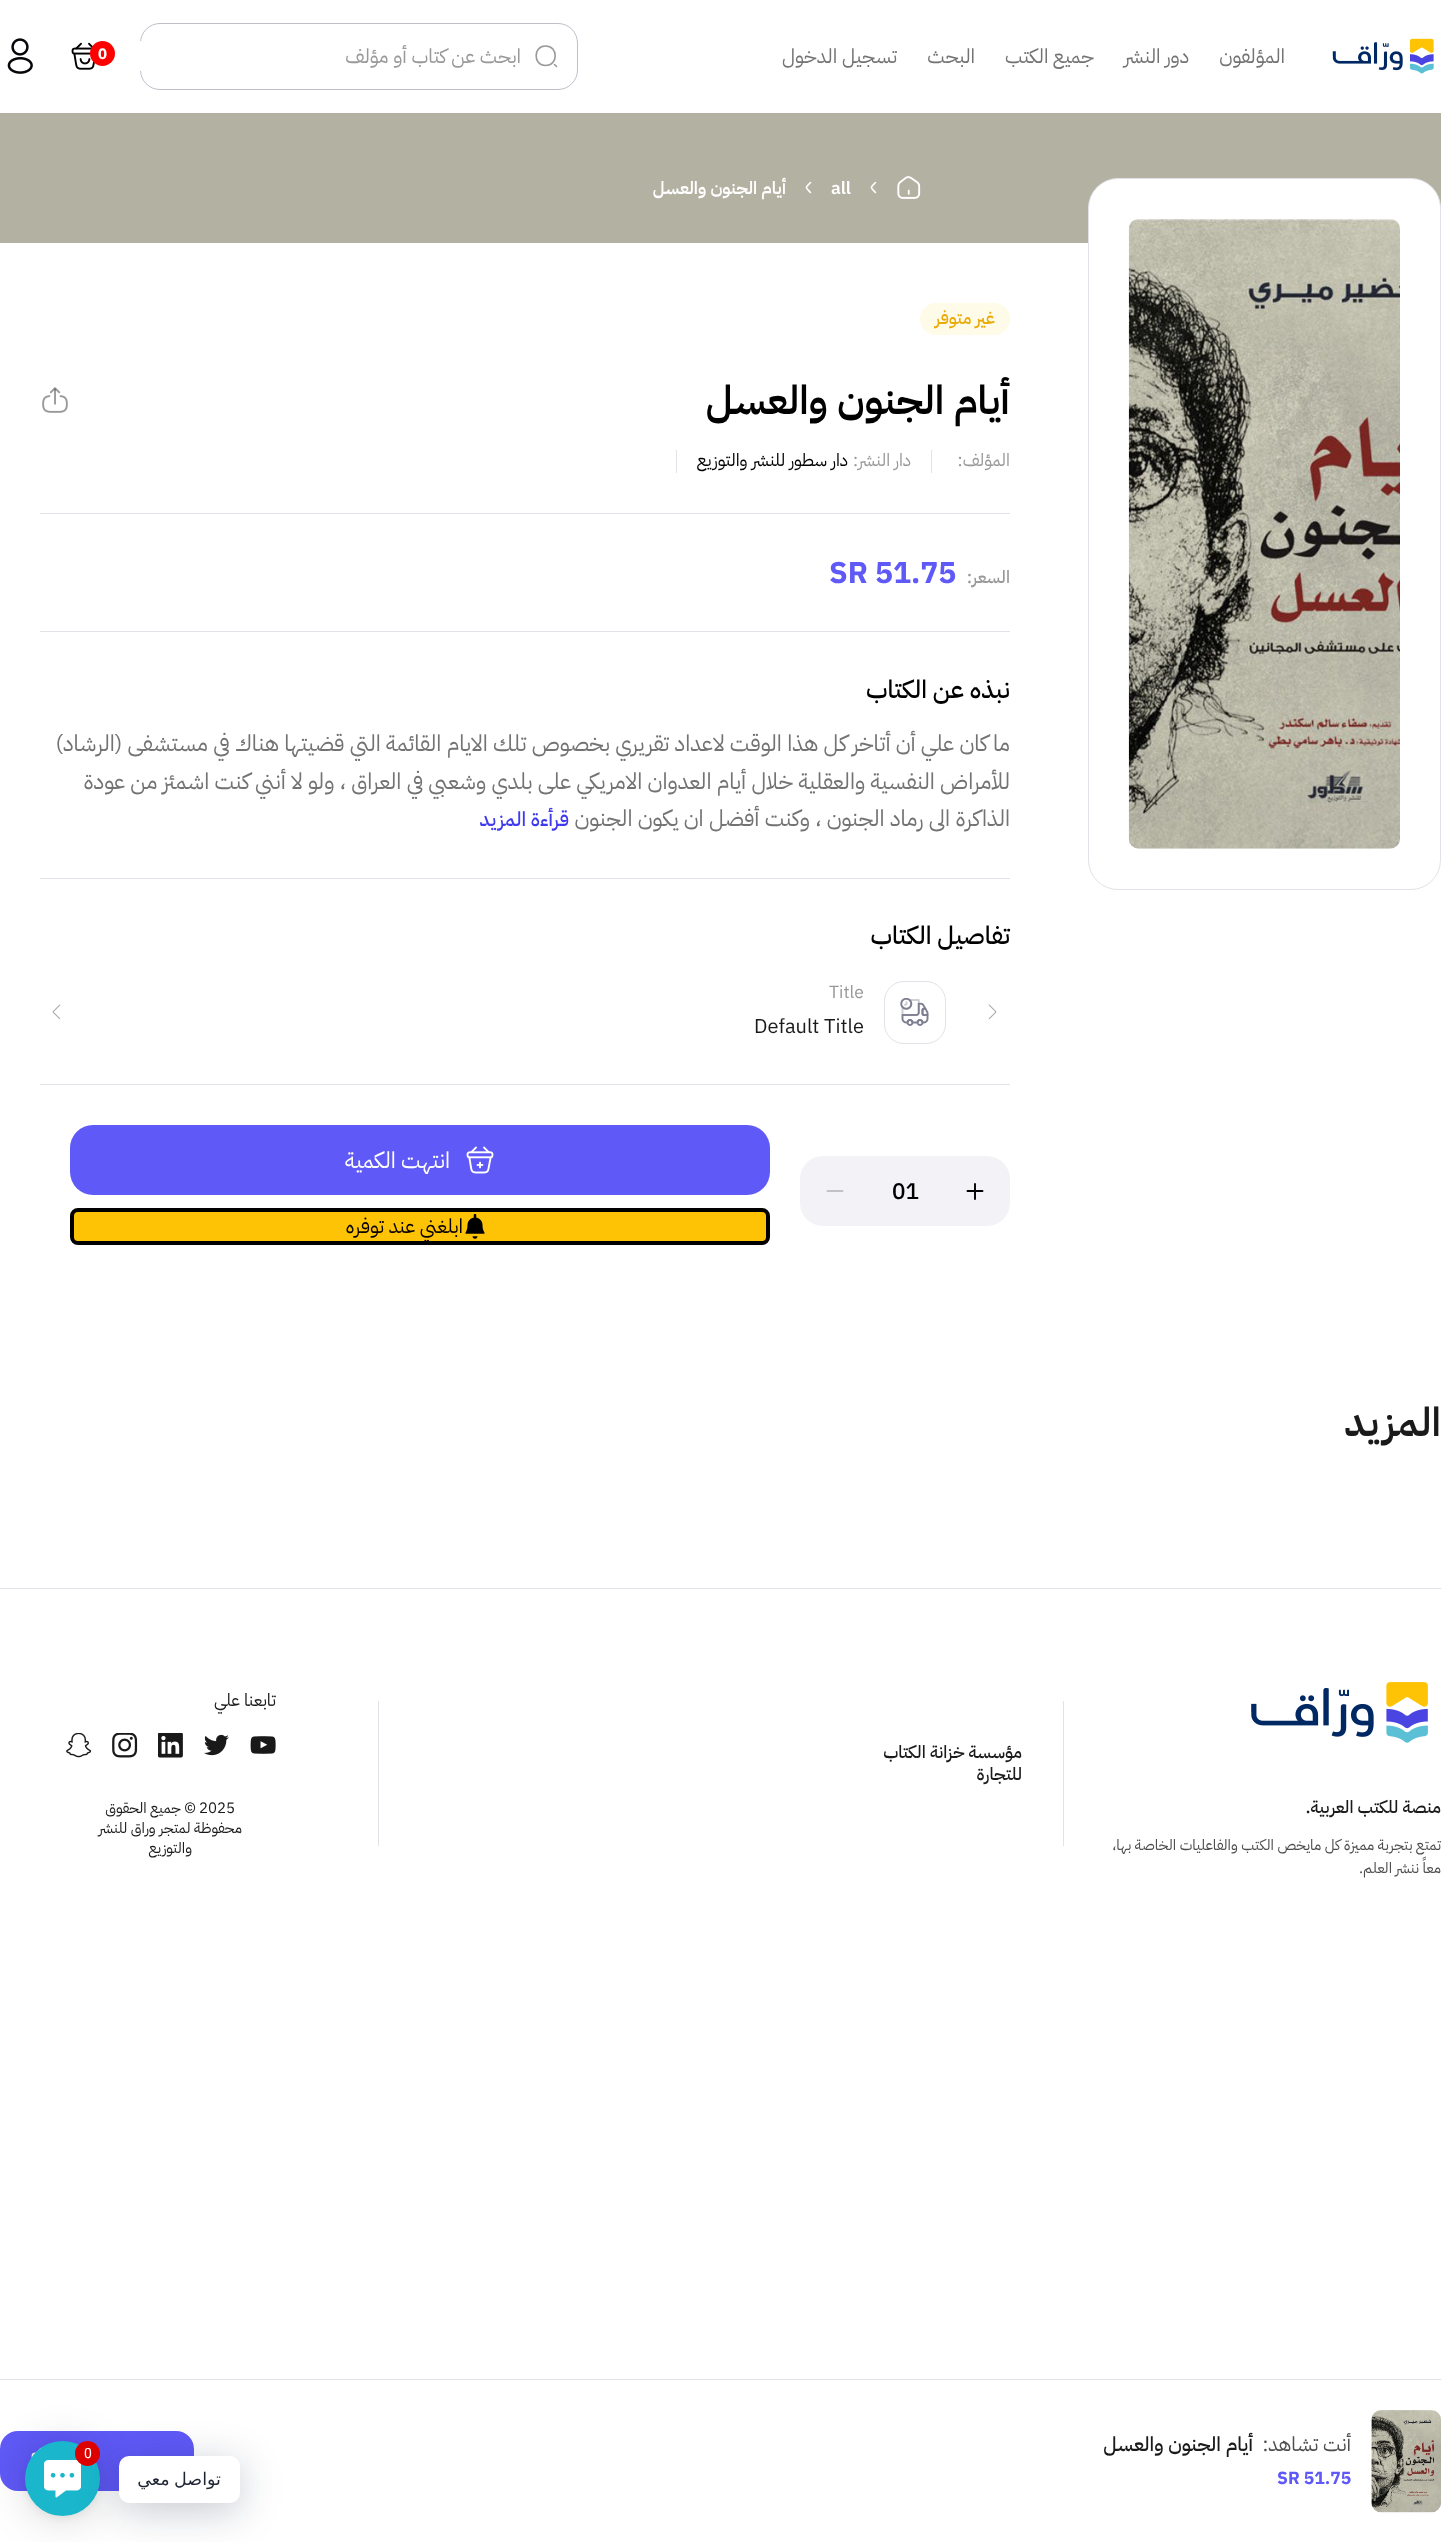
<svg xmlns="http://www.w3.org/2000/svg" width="1441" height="2542">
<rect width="100%" height="100%" fill="#fff"/>
<image x="1332" y="38" width="102" height="36" href="media/1.png"/>
<text x="1285" y="63" style="font-family:IBM Plex Sans Arabic;font-size:20px;direction:rtl;fill:#737373">المؤلفون</text>
<text x="1189" y="63" style="font-family:IBM Plex Sans Arabic;font-size:20px;direction:rtl;fill:#737373">دور النشر</text>
<text x="1094" y="63" style="font-family:IBM Plex Sans Arabic;font-size:20px;direction:rtl;fill:#737373">جميع الكتب</text>
<text x="975" y="63" style="font-family:IBM Plex Sans Arabic;font-size:20px;direction:rtl;fill:#737373">البحث</text>
<text x="897" y="63" style="font-family:IBM Plex Sans Arabic;font-size:20px;direction:rtl;fill:#737373">تسجيل الدخول</text>
<rect x="140.5" y="23.5" width="437" height="66" rx="19.5" fill="none" stroke="#bfbeca"/>
<path d="M545.5 65.5c13 0 13-19.5 0-19.5c-12.5 0-12.5 19.5 0 19.5zm11 1l-2-2" fill="none" stroke="#999" stroke-width="1.6" stroke-linecap="round" stroke-linejoin="round"/>
<rect x="140" y="41" width="2" height="30" fill="#fff"/>
<text x="521" y="63" style="font-family:IBM Plex Sans Arabic;font-size:20px;direction:rtl;fill:#999">ابحث عن كتاب أو مؤلف</text>
<image x="71" y="42" width="24" height="28" href="media/2.png"/>
<circle cx="102.5" cy="53.5" r="12.5" fill="#f00"/>
<text x="98" y="59" style="font-family:IBM Plex Sans Arabic;font-size:15px;font-weight:bold;fill:#fff">0</text>
<image x="7" y="38" width="26" height="36" href="media/3.png"/>
<rect y="113" width="1441" height="130" fill="#b3b1a2"/>
<image x="897" y="176" width="24" height="23" href="media/4.png"/>
<path d="M875.5 192.5c-5.5-6-5.5-4 0-10" fill="none" stroke="#fff" stroke-width="1.6" stroke-linecap="round" stroke-linejoin="round"/>
<text x="831" y="194" style="font-family:IBM Plex Sans Arabic;font-size:17.5px;font-weight:600;fill:#fff">all</text>
<path d="M810.5 192.5c-5.5-6-5.5-4 0-10" fill="none" stroke="#fff" stroke-width="1.6" stroke-linecap="round" stroke-linejoin="round"/>
<text x="786" y="194" style="font-family:IBM Plex Sans Arabic;font-size:17.5px;font-weight:600;direction:rtl;fill:#fff">أيام الجنون والعسل</text>
<rect x="1088.5" y="178.5" width="352" height="711" rx="29.5" fill="#fff" stroke="#e2e2e9"/>
<image x="1128" y="219" width="272" height="630" href="media/5.png"/>
<rect x="920" y="303" width="90" height="32" rx="16" fill="#fefbe8"/>
<text x="995" y="324" style="font-family:IBM Plex Sans Arabic;font-size:17.5px;font-weight:500;direction:rtl;fill:#eaaa08">غير متوفر</text>
<text x="1010" y="414" style="font-family:IBM Plex Sans Arabic;font-size:40px;font-weight:600;direction:rtl;fill:#000">أيام الجنون والعسل</text>
<image x="42" y="387" width="26" height="26" href="media/6.png"/>
<rect x="931" y="450" width="1" height="23" fill="#e2e2e9"/>
<text x="1010" y="466" style="font-family:IBM Plex Sans Arabic;font-size:17.5px;direction:rtl;fill:#999">المؤلف:</text>
<rect x="676" y="450" width="1" height="23" fill="#e2e2e9"/>
<text x="911" y="466" style="font-family:IBM Plex Sans Arabic;font-size:17.5px;direction:rtl;fill:#999">دار النشر:</text>
<text x="848" y="466" style="font-family:IBM Plex Sans Arabic;font-size:17.5px;direction:rtl;fill:#000">دار سطور للنشر والتوزيع</text>
<rect x="40" y="513" width="970" height="1" fill="#e2e2e9"/>
<text x="1010" y="583" style="font-family:IBM Plex Sans Arabic;font-size:17.5px;font-weight:500;direction:rtl;fill:#999">السعر:</text>
<text x="829" y="583" style="font-family:IBM Plex Sans Arabic;font-size:30px;font-weight:bold;fill:#5f59f7">SR 51.75</text>
<rect x="40" y="631" width="970" height="1" fill="#e2e2e9"/>
<text x="1010" y="698" style="font-family:IBM Plex Sans Arabic;font-size:25px;font-weight:500;direction:rtl;fill:#000">نبذه عن الكتاب</text>
<text x="1010" y="751" style="font-family:IBM Plex Sans Arabic;font-size:22.5px;direction:rtl;fill:#737373">ما كان علي أن أتاخر كل هذا الوقت لاعداد تقريري بخصوص تلك الايام القائمة التي قضيتها هناك في مستشفى (الرشاد)</text>
<text x="1010" y="789" style="font-family:IBM Plex Sans Arabic;font-size:22.5px;direction:rtl;fill:#737373">للأمراض النفسية والعقلية خلال أيام العدوان الامريكي على بلدي وشعبي في العراق ، ولو لا أنني كنت اشمئز من عودة</text>
<text x="1010" y="826" style="font-family:IBM Plex Sans Arabic;font-size:22.5px;direction:rtl;fill:#737373">الذاكرة الى رماد الجنون ، وكنت أفضل ان يكون الجنون</text>
<text x="569" y="826" style="font-family:IBM Plex Sans Arabic;font-size:20px;font-weight:500;direction:rtl;fill:#403aee">قرأءة المزيد</text>
<rect x="40" y="878" width="970" height="1" fill="#e2e2e9"/>
<text x="1010" y="944" style="font-family:IBM Plex Sans Arabic;font-size:25px;font-weight:500;direction:rtl;fill:#000">تفاصيل الكتاب</text>
<image x="988" y="1004" width="9" height="16" href="media/7.png"/>
<rect x="884.5" y="981.5" width="61" height="62" rx="19.5" fill="none" stroke="#e2e2e9"/>
<image x="900" y="998" width="29" height="28" href="media/8.png"/>
<text x="829" y="998" style="font-family:IBM Plex Sans Arabic;font-size:17.5px;fill:#999">Title</text>
<text x="754" y="1033" style="font-family:IBM Plex Sans Arabic;font-size:20px;fill:#1a1a1a">Default Title</text>
<image x="52" y="1004" width="9" height="16" href="media/9.png"/>
<rect x="40" y="1084" width="970" height="1" fill="#e2e2e9"/>
<rect x="800" y="1156" width="210" height="70" rx="23" fill="#f3f3f7"/>
<path d="M967.5 1191h15m-7.5 8v-15" fill="none" stroke="#000" stroke-width="1.9" stroke-linecap="round" stroke-linejoin="round"/>
<text x="892" y="1199" style="font-family:IBM Plex Sans Arabic;font-size:22.5px;font-weight:500;fill:#000">01</text>
<path d="M827.5 1191h15" fill="none" stroke="#c2c2c6" stroke-width="1.9" stroke-linecap="round" stroke-linejoin="round"/>
<rect x="70" y="1125" width="700" height="70" rx="23" fill="#5f59f7"/>
<image x="466" y="1146" width="28" height="28" href="media/10.png"/>
<text x="450" y="1168" style="font-family:IBM Plex Sans Arabic;font-size:22.5px;direction:rtl;fill:#fff">انتهت الكمية</text>
<rect x="72" y="1210" width="696" height="33" rx="6" fill="#ffc306" stroke="#000" stroke-width="4"/>
<image x="465" y="1214" width="20" height="25" href="media/11.png"/>
<text x="463" y="1233" style="font-family:IBM Plex Sans Arabic;font-size:20px;direction:rtl;fill:#060000">ابلغني عند توفره</text>
<text x="1441" y="1436" style="font-family:IBM Plex Sans Arabic;font-size:40px;font-weight:600;direction:rtl;fill:#1a1a1a">المزيد</text>
<rect y="2379" width="1441" height="1" fill="#e2e2e9"/>
<image x="1371" y="2410" width="70" height="103" href="media/12.png"/>
<text x="1351" y="2451" style="font-family:IBM Plex Sans Arabic;font-size:20px;direction:rtl;fill:#4d4d4d">أنت تشاهد:</text>
<text x="1253" y="2451" style="font-family:IBM Plex Sans Arabic;font-size:20px;font-weight:500;direction:rtl;fill:#1a1a1a">أيام الجنون والعسل</text>
<text x="1277" y="2484" style="font-family:IBM Plex Sans Arabic;font-size:17.5px;font-weight:bold;fill:#5f59f7">SR 51.75</text>
<rect y="2431" width="194" height="60" rx="18" fill="#5f59f7"/>
<image x="31" y="2447" width="11" height="11" href="media/13.png"/>
<rect y="1588" width="1441" height="1" fill="#e2e2e9"/>
<rect x="1063" y="1701" width="1" height="145" fill="#e2e2e9"/>
<rect x="378" y="1701" width="1" height="145" fill="#e2e2e9"/>
<text x="1022" y="1758" style="font-family:IBM Plex Sans Arabic;font-size:17.5px;font-weight:500;direction:rtl;fill:#1a1a1a">مؤسسة خزانة الكتاب</text>
<text x="1022" y="1780" style="font-family:IBM Plex Sans Arabic;font-size:17.5px;font-weight:500;direction:rtl;fill:#1a1a1a">للتجارة</text>
<text x="276" y="1706" style="font-family:IBM Plex Sans Arabic;font-size:17.5px;direction:rtl;fill:#1a1a1a">تابعنا علي</text>
<image x="250" y="1736" width="26" height="18" href="media/14.png"/>
<image x="204" y="1734" width="25" height="22" href="media/15.png"/>
<image x="158" y="1733" width="25" height="25" href="media/16.png"/>
<image x="112" y="1733" width="26" height="25" href="media/17.png"/>
<image x="66" y="1733" width="25" height="25" href="media/18.png"/>
<text x="199" y="1813" style="font-family:IBM Plex Sans Arabic;font-size:15px;fill:#1a1a1a">2025</text>
<text x="196" y="1813" style="font-family:IBM Plex Sans Arabic;font-size:15px;direction:rtl;fill:#1a1a1a">© جميع الحقوق</text>
<text x="242" y="1833" style="font-family:IBM Plex Sans Arabic;font-size:15px;direction:rtl;fill:#1a1a1a">محفوظة لمتجر وراق للنشر</text>
<text x="192" y="1853" style="font-family:IBM Plex Sans Arabic;font-size:15px;direction:rtl;fill:#1a1a1a">والتوزيع</text>
<image x="1251" y="1682" width="177" height="61" href="media/19.png"/>
<text x="1441" y="1813" style="font-family:IBM Plex Sans Arabic;font-size:17.5px;font-weight:500;direction:rtl;fill:#1a1a1a">منصة للكتب العربية.</text>
<text x="1441" y="1850" style="font-family:IBM Plex Sans Arabic;font-size:15px;direction:rtl;fill:#4d4d4d">تمتع بتجربة مميزة كل مايخص الكتب والفاعليات الخاصة بها،</text>
<text x="1441" y="1873" style="font-family:IBM Plex Sans Arabic;font-size:15px;direction:rtl;fill:#4d4d4d">معاً ننشر</text>
<text x="1392" y="1873" style="font-family:IBM Plex Sans Arabic;font-size:15px;direction:rtl;fill:#4d4d4d">العلم.</text>
<rect x="25" y="2444" width="75" height="75" rx="37.5" fill="#00000029" filter="blur(20px)"/>
<rect x="25" y="2443" width="75" height="75" rx="37.5" fill="#0000000f" filter="blur(4px)"/>
<circle cx="62.5" cy="2478.5" r="37.5" fill="#1ab7cc"/>
<rect x="119" y="2464" width="121" height="46" rx="10" fill="#00122e3d" filter="blur(20px)"/>
<image x="44" y="2460" width="37" height="38" href="media/20.png"/>
<circle cx="87.5" cy="2453.5" r="12.5" fill="#d00"/>
<text x="84" y="2458" style="font-family:Roboto;font-size:14px;fill:#fff">0</text>
<rect x="119" y="2456" width="121" height="47" rx="10" fill="#fff"/>
<text x="221" y="2485" word-spacing="-1" style="font-family:DejaVu Sans;font-size:17.5px;direction:rtl;fill:#1e2433">تواصل معي</text>
</svg>
